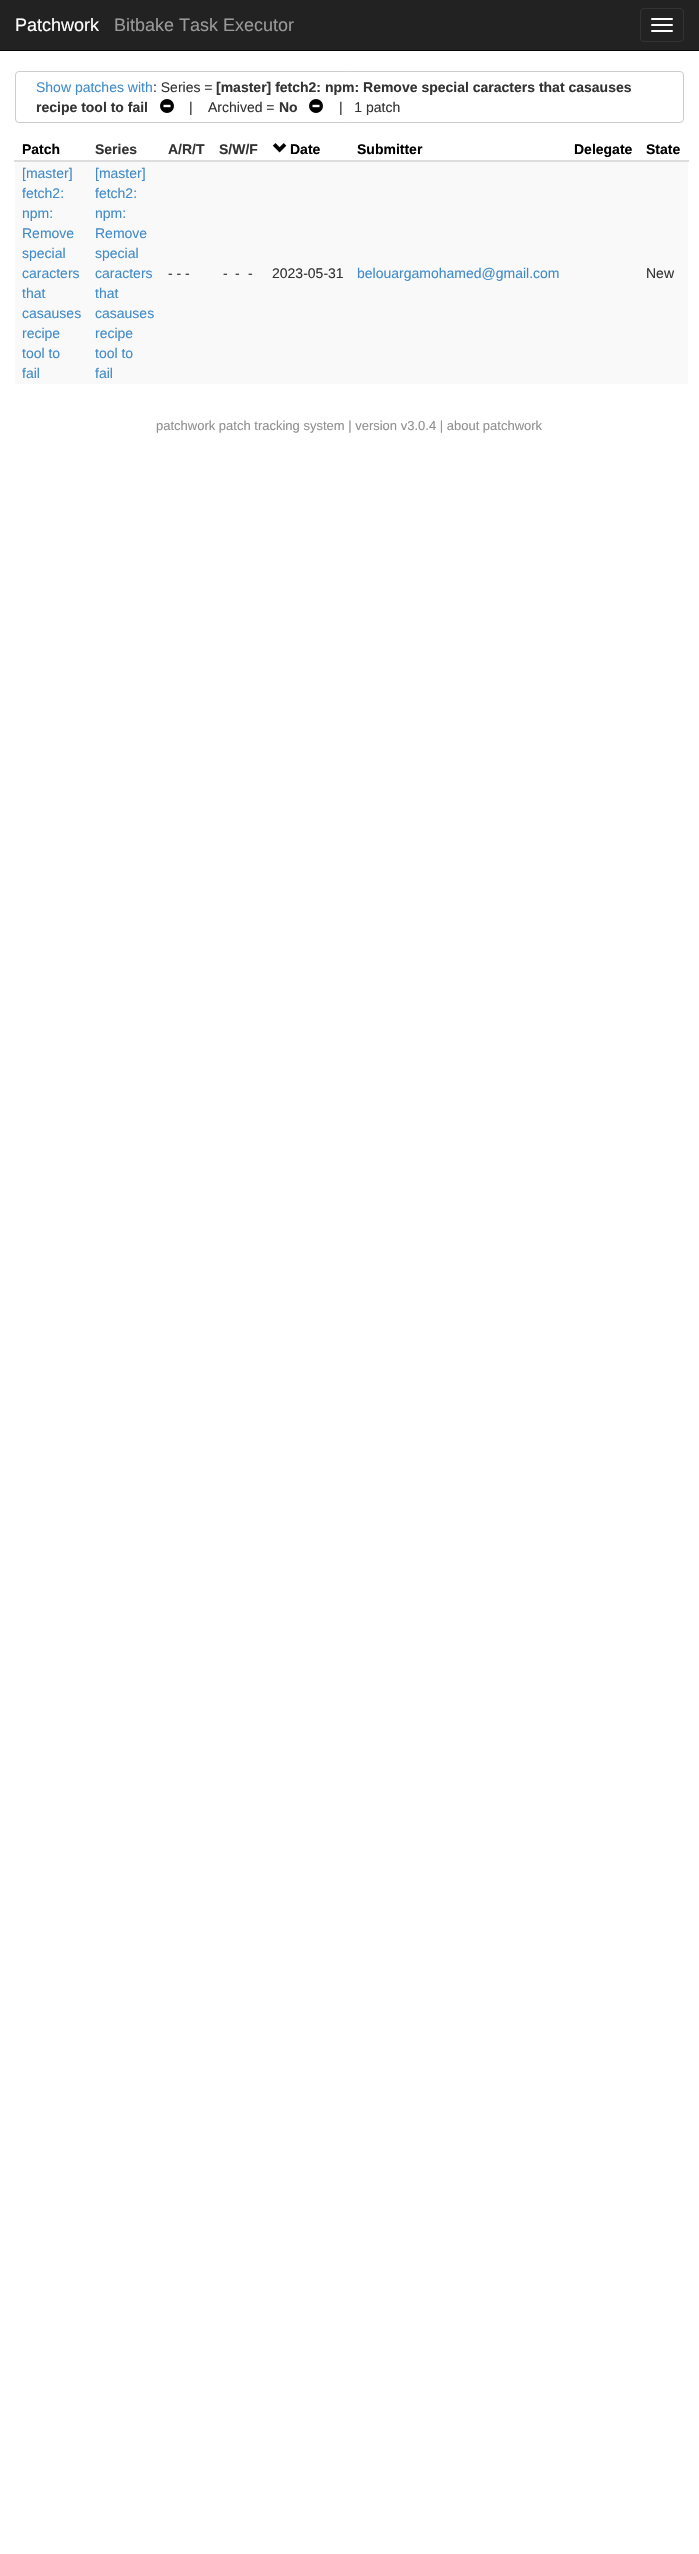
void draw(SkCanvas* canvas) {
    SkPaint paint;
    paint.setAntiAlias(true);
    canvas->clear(0xFFFFFFFF);
    paint.setColor(0xFF222222);
    canvas->drawRect(SkRect::MakeXYWH(0, 0, 699, 50), paint);
    paint.setColor(0xFF080808);
    canvas->drawRect(SkRect::MakeXYWH(0, 50, 699, 1), paint);
    SkFont font1(fontMgr->matchFamilyStyle("Liberation Sans", SkFontStyle::Normal()), 18);
    font1.setSubpixel(true);
    paint.setColor(0xFFFFFFFF);
    canvas->drawString("Patchwork", 15, 31, font1, paint);
    paint.setColor(0xFF999999);
    canvas->drawString("Bitbake Task Executor", 114, 31, font1, paint);
    paint.setStyle(SkPaint::kStroke_Style);
    paint.setStrokeWidth(1);
    paint.setColor(0xFF333333);
    canvas->drawRoundRect(SkRect::MakeXYWH(640.5f, 8.5f, 43, 33), 3.5f, 3.5f, paint);
    paint.setStyle(SkPaint::kFill_Style);
    paint.setColor(0xFFFFFFFF);
    canvas->drawRoundRect(SkRect::MakeXYWH(651, 18, 22, 2), 1, 1, paint);
    canvas->drawRoundRect(SkRect::MakeXYWH(651, 24, 22, 2), 1, 1, paint);
    canvas->drawRoundRect(SkRect::MakeXYWH(651, 30, 22, 2), 1, 1, paint);
    paint.setStyle(SkPaint::kStroke_Style);
    paint.setColor(0xFFCCCCCC);
    canvas->drawRoundRect(SkRect::MakeXYWH(15.5f, 71.5f, 668, 51), 3.5f, 3.5f, paint);
    SkFont font2(fontMgr->matchFamilyStyle("Liberation Sans", SkFontStyle::Normal()), 14);
    font2.setSubpixel(true);
    paint.setStyle(SkPaint::kFill_Style);
    paint.setColor(0xFF428BCA);
    canvas->drawString("Show patches with", 36, 92, font2, paint);
    paint.setColor(0xFF333333);
    canvas->drawString(": Series =", 153, 92, font2, paint);
    SkFont font3(fontMgr->matchFamilyStyle("Liberation Sans", SkFontStyle::Bold()), 14);
    font3.setSubpixel(true);
    canvas->drawString("[master] fetch2: npm: Remove special caracters that casauses", 216, 92, font3, paint);
    canvas->drawString("recipe tool to fail", 36, 112, font3, paint);
    canvas->drawImageRect(SkImages::DeferredFromEncodedData(SkData::MakeFromFileName("img1.png")), SkRect::MakeXYWH(160, 99, 14, 14), SkSamplingOptions());
    canvas->drawString("|", 189, 112, font2, paint);
    canvas->drawString("Archived =", 208, 112, font2, paint);
    canvas->drawString("No", 279, 112, font3, paint);
    canvas->drawImageRect(SkImages::DeferredFromEncodedData(SkData::MakeFromFileName("img1.png")), SkRect::MakeXYWH(309, 99, 14, 14), SkSamplingOptions());
    canvas->drawString("|   1 patch", 339, 112, font2, paint);
    paint.setColor(0xFF000000);
    canvas->drawString("Patch", 22, 154, font3, paint);
    paint.setColor(0xFF333333);
    canvas->drawString("Series", 95, 154, font3, paint);
    canvas->drawString("A/R/T", 168, 154, font3, paint);
    canvas->drawString("S/W/F", 219, 154, font3, paint);
    canvas->drawImageRect(SkImages::DeferredFromEncodedData(SkData::MakeFromFileName("img2.png")), SkRect::MakeXYWH(272, 143, 15, 10), SkSamplingOptions());
    paint.setColor(0xFF000000);
    canvas->drawString("Date", 290, 154, font3, paint);
    canvas->drawString("Submitter", 357, 154, font3, paint);
    canvas->drawString("Delegate", 574, 154, font3, paint);
    paint.setColor(0xFFDDDDDD);
    canvas->drawRect(SkRect::MakeXYWH(14, 160, 675, 2), paint);
    paint.setColor(0xFF000000);
    canvas->drawString("State", 646, 154, font3, paint);
    paint.setColor(0xFFF9F9F9);
    canvas->drawRect(SkRect::MakeXYWH(15, 162, 673, 222), paint);
    paint.setColor(0xFF428BCA);
    canvas->drawString("[master]", 22, 178, font2, paint);
    canvas->drawString("fetch2:", 22, 198, font2, paint);
    canvas->drawString("npm:", 22, 218, font2, paint);
    canvas->drawString("Remove", 22, 238, font2, paint);
    canvas->drawString("special", 22, 258, font2, paint);
    canvas->drawString("caracters", 22, 278, font2, paint);
    canvas->drawString("that", 22, 298, font2, paint);
    canvas->drawString("casauses", 22, 318, font2, paint);
    canvas->drawString("recipe", 22, 338, font2, paint);
    canvas->drawString("tool to", 22, 358, font2, paint);
    canvas->drawString("fail", 22, 378, font2, paint);
    canvas->drawString("[master]", 95, 178, font2, paint);
    canvas->drawString("fetch2:", 95, 198, font2, paint);
    canvas->drawString("npm:", 95, 218, font2, paint);
    canvas->drawString("Remove", 95, 238, font2, paint);
    canvas->drawString("special", 95, 258, font2, paint);
    canvas->drawString("caracters", 95, 278, font2, paint);
    canvas->drawString("that", 95, 298, font2, paint);
    canvas->drawString("casauses", 95, 318, font2, paint);
    canvas->drawString("recipe", 95, 338, font2, paint);
    canvas->drawString("tool to", 95, 358, font2, paint);
    canvas->drawString("fail", 95, 378, font2, paint);
    paint.setColor(0xFF333333);
    canvas->drawString("- - -", 168, 278, font2, paint);
    canvas->drawString("-", 223, 278, font2, paint);
    canvas->drawString("-", 235, 278, font2, paint);
    canvas->drawString("-", 248, 278, font2, paint);
    canvas->drawString("2023-05-31", 272, 278, font2, paint);
    paint.setColor(0xFF428BCA);
    canvas->drawString("belouargamohamed@gmail.com", 357, 278, font2, paint);
    paint.setColor(0xFF333333);
    canvas->drawString("New", 646, 278, font2, paint);
    SkFont font4(fontMgr->matchFamilyStyle("Liberation Sans", SkFontStyle::Normal()), 13);
    font4.setSubpixel(true);
    paint.setColor(0xFF909090);
    canvas->drawString("patchwork patch tracking system | version v3.0.4 | about patchwork", 156, 430, font4, paint);
}
